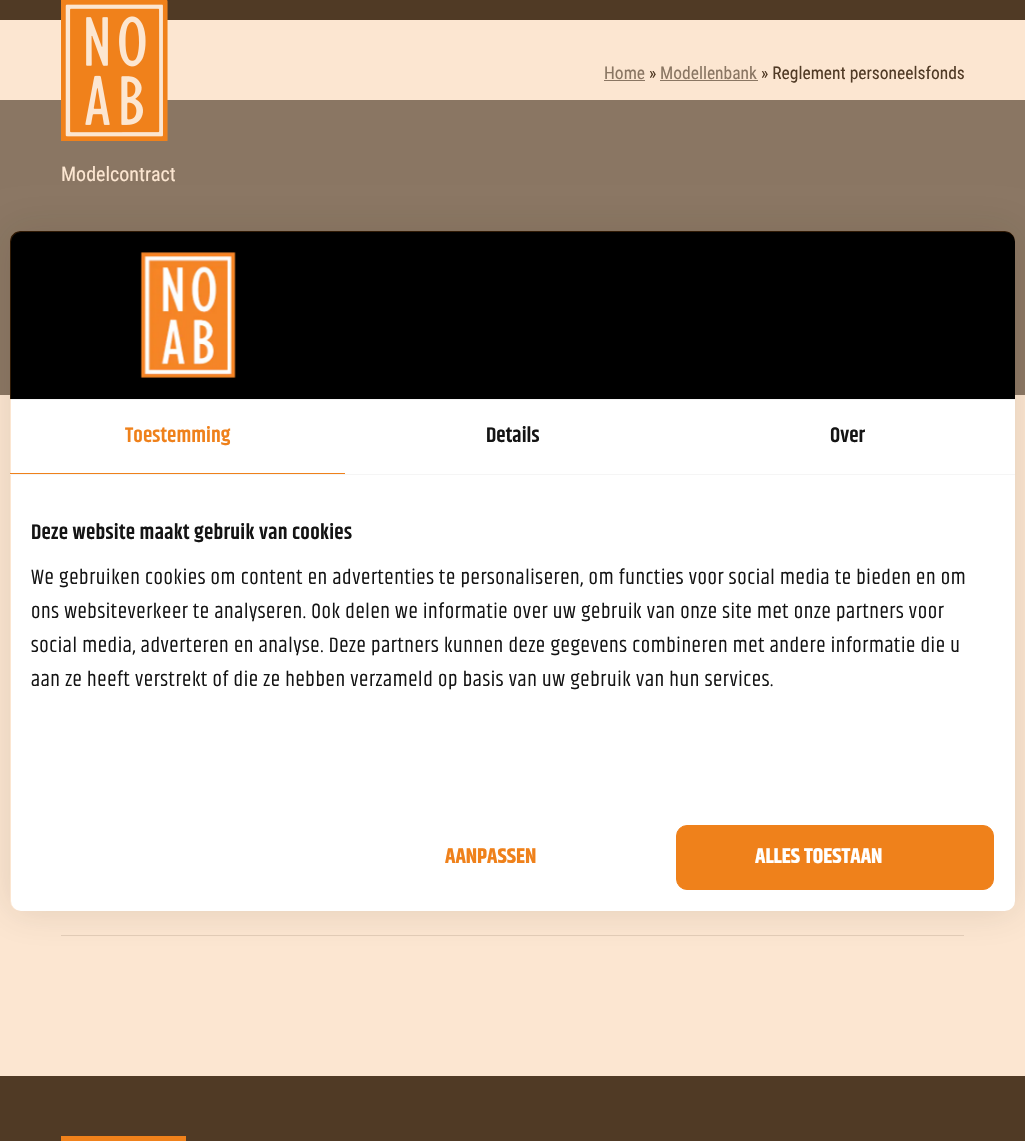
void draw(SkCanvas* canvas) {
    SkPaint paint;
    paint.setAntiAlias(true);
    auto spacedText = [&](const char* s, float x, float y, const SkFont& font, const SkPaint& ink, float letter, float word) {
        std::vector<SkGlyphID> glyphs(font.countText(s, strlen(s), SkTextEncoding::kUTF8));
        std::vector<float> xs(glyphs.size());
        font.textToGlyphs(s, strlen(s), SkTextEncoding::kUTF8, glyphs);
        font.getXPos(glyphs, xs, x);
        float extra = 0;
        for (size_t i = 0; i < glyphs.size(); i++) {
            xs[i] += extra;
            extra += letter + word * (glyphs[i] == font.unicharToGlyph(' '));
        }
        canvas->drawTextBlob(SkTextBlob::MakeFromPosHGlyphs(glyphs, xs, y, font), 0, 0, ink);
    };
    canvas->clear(0xFFFFFFFF);
    paint.setColor(0xFF282828);
    canvas->drawRect(SkRect::MakeXYWH(0, 0, 1025, 20), paint);
    paint.setColor(0xFF707375);
    canvas->drawRect(SkRect::MakeXYWH(0, 100, 1025, 295), paint);
    canvas->drawImageRect(SkImages::DeferredFromEncodedData(SkData::MakeFromFileName("img1.png")), SkRect::MakeXYWH(61, 0, 107, 141), SkSamplingOptions());
    SkFont font1(fontMgr->matchFamilyStyle("Roboto Condensed", SkFontStyle::Normal()), 17.5f);
    font1.setSubpixel(true);
    canvas->drawString("Home", 604, 79, font1, paint);
    canvas->drawRect(SkRect::MakeXYWH(604, 80, 41, 1), paint);
    paint.setColor(0xFF282828);
    canvas->drawString("»", 649, 79, font1, paint);
    paint.setColor(0xFF707375);
    canvas->drawString("Modellenbank", 660, 79, font1, paint);
    canvas->drawRect(SkRect::MakeXYWH(660, 80, 98, 1), paint);
    paint.setColor(0xFF282828);
    canvas->drawString("» Reglement personeelsfonds", 761, 79, font1, paint);
    SkFont font2(fontMgr->matchFamilyStyle("Roboto Condensed", SkFontStyle::Normal()), 20);
    font2.setSubpixel(true);
    paint.setColor(0xFFFFFFFF);
    canvas->drawString("Modelcontract", 61, 181, font2, paint);
    paint.setColor(0xFFE0E1E1);
    canvas->drawRect(SkRect::MakeXYWH(61, 935, 903, 1), paint);
    paint.setColor(0x261D2327);
    paint.setMaskFilter(SkMaskFilter::MakeBlur(kNormal_SkBlurStyle, 19));
    canvas->drawRoundRect(SkRect::MakeXYWH(10, 231, 1005, 680), 10, 10, paint);
    paint.setMaskFilter(nullptr);
    paint.setColor(0xFFFFFFFF);
    canvas->drawRoundRect(SkRect::MakeXYWH(10, 231, 1005, 680), 10, 10, paint);
    paint.setColor(0xFF000000);
    canvas->drawPath(SkPathBuilder().moveTo(20, 231).lineTo(1005, 231).cubicTo(1010.5f, 231, 1015, 235.5f, 1015, 241).lineTo(1015, 400).lineTo(10, 400).lineTo(10, 241).cubicTo(10, 235.5f, 14.5f, 231, 20, 231).close().detach(), paint);
    paint.setColor(0xFFF5F5F5);
    canvas->drawRect(SkRect::MakeXYWH(10, 399, 1005, 1), paint);
    canvas->drawImageRect(SkImages::DeferredFromEncodedData(SkData::MakeFromFileName("img2.png")), SkRect::MakeXYWH(140, 252, 96, 126), SkSamplingOptions());
    paint.setColor(0xFF282828);
    canvas->drawRect(SkRect::MakeXYWH(0, 1076, 1025, 65), paint);
    paint.setColor(0xFFF0811B);
    canvas->drawRect(SkRect::MakeXYWH(61, 1136, 125, 5), paint);
    paint.setStyle(SkPaint::kStroke_Style);
    paint.setStrokeWidth(11413);
    paint.setColor(0x33EF811B);
    canvas->drawRoundRect(SkRect::MakeXYWH(-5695.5f, -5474.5f, 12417, 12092), 5716.5f, 5716.5f, paint);
    paint.setStyle(SkPaint::kFill_Style);
    paint.setColor(0xFFF5F5F5);
    canvas->drawRect(SkRect::MakeXYWH(10, 474, 1005, 1), paint);
    paint.setColor(0xFFEF811B);
    canvas->drawRect(SkRect::MakeXYWH(10, 473, 335, 1), paint);
    SkFont font3(fontMgr->matchFamilyStyle("Khand", SkFontStyle(600, SkFontStyle::kNormal_Width, SkFontStyle::kUpright_Slant)), 21.25f);
    font3.setSubpixel(true);
    spacedText("Toestemming", 125, 442, font3, paint, 0.1f, 0);
    paint.setColor(0xFF141414);
    spacedText("Details", 486, 442, font3, paint, 0.1f, 0);
    spacedText("Over", 830, 442, font3, paint, 0.1f, 0);
    spacedText("Deze website maakt gebruik van cookies", 31, 539, font3, paint, 0.3f, 0);
    SkFont font4(fontMgr->matchFamilyStyle("Khand", SkFontStyle::Normal()), 21.25f);
    font4.setSubpixel(true);
    spacedText("We gebruiken cookies om content en advertenties te personaliseren, om functies voor social media te bieden en om", 31, 584, font4, paint, 0.62f, 0);
    spacedText("ons websiteverkeer te analyseren. Ook delen we informatie over uw gebruik van onze site met onze partners voor", 31, 618, font4, paint, 0.62f, 0);
    spacedText("social media, adverteren en analyse. Deze partners kunnen deze gegevens combineren met andere informatie die u", 31, 652, font4, paint, 0.62f, 0);
    spacedText("aan ze heeft verstrekt of die ze hebben verzameld op basis van uw gebruik van hun services.", 31, 686, font4, paint, 0.62f, 0);
    SkFont font5(fontMgr->matchFamilyStyle("Khand", SkFontStyle::Bold()), 21.25f);
    font5.setSubpixel(true);
    paint.setColor(0xFFEF811B);
    canvas->drawString("AANPASSEN", 445, 863, font5, paint);
    canvas->drawRoundRect(SkRect::MakeXYWH(676.5f, 825.5f, 317, 64), 10.5f, 10.5f, paint);
    paint.setStyle(SkPaint::kStroke_Style);
    paint.setStrokeWidth(1);
    canvas->drawRoundRect(SkRect::MakeXYWH(676.5f, 825.5f, 317, 64), 10.5f, 10.5f, paint);
    paint.setStyle(SkPaint::kFill_Style);
    paint.setColor(0xFFFFFFFF);
    canvas->drawString("ALLES TOESTAAN", 755, 863, font5, paint);
}
